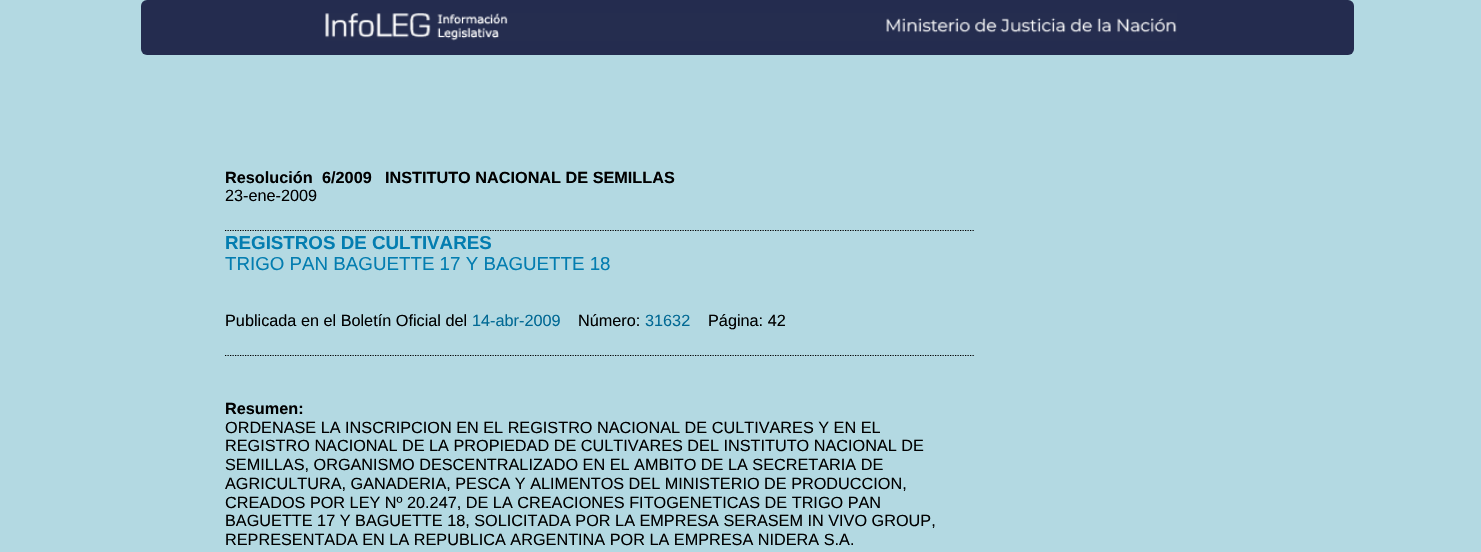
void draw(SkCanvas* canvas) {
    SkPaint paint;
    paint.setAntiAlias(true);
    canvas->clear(0xFFB3D9E2);
    paint.setColor(0xFF242C4F);
    canvas->drawRoundRect(SkRect::MakeXYWH(141, 0, 1213, 55), 6, 6, paint);
    canvas->drawImageRect(SkImages::DeferredFromEncodedData(SkData::MakeFromFileName("img1.png")), SkRect::MakeXYWH(325, 13, 852, 28), SkSamplingOptions());
    paint.setStyle(SkPaint::kStroke_Style);
    paint.setStrokeWidth(1.2f);
    paint.setColor(0xFF000000);
    paint.setPathEffect(SkDashPathEffect::Make({{1.25f, 1.25f}}, 0));
    canvas->drawPath(SkPathBuilder().moveTo(225, 230.5f).lineTo(975, 230.5f).detach(), paint);
    paint.setPathEffect(nullptr);
    SkFont font1(fontMgr->matchFamilyStyle("Liberation Sans", SkFontStyle::Bold()), 16.25f);
    font1.setSubpixel(true);
    paint.setStyle(SkPaint::kFill_Style);
    canvas->drawString("Resolución", 225, 183, font1, paint);
    canvas->drawString("6/2009", 322, 183, font1, paint);
    canvas->drawString("INSTITUTO NACIONAL DE SEMILLAS", 385, 183, font1, paint);
    SkFont font2(fontMgr->matchFamilyStyle("Liberation Sans", SkFontStyle::Normal()), 16.25f);
    font2.setSubpixel(true);
    canvas->drawString("23-ene-2009", 225, 201, font2, paint);
    SkFont font3(fontMgr->matchFamilyStyle("Liberation Sans", SkFontStyle::Bold()), 18.75f);
    font3.setSubpixel(true);
    paint.setColor(0xFF037DB0);
    canvas->drawString("REGISTROS DE CULTIVARES", 225, 249, font3, paint);
    SkFont font4(fontMgr->matchFamilyStyle("Liberation Sans", SkFontStyle::Normal()), 18.75f);
    font4.setSubpixel(true);
    canvas->drawString("TRIGO PAN BAGUETTE 17 Y BAGUETTE 18", 225, 270, font4, paint);
    paint.setStyle(SkPaint::kStroke_Style);
    paint.setColor(0xFF000000);
    paint.setPathEffect(SkDashPathEffect::Make({{1.25f, 1.25f}}, 0));
    canvas->drawPath(SkPathBuilder().moveTo(225, 355.5f).lineTo(975, 355.5f).detach(), paint);
    paint.setPathEffect(nullptr);
    paint.setStyle(SkPaint::kFill_Style);
    canvas->drawString("Publicada en el Boletín Oficial del", 225, 326, font2, paint);
    paint.setColor(0xFF016994);
    canvas->drawString("14-abr-2009", 472, 326, font2, paint);
    paint.setColor(0xFF000000);
    canvas->drawString("Número:", 578, 326, font2, paint);
    paint.setColor(0xFF016994);
    canvas->drawString("31632", 645, 326, font2, paint);
    paint.setColor(0xFF000000);
    canvas->drawString("Página: 42", 708, 326, font2, paint);
    canvas->drawString("Resumen:", 225, 414, font1, paint);
    canvas->drawString("ORDENASE LA INSCRIPCION EN EL REGISTRO NACIONAL DE CULTIVARES Y EN EL", 225, 433, font2, paint);
    canvas->drawString("REGISTRO NACIONAL DE LA PROPIEDAD DE CULTIVARES DEL INSTITUTO NACIONAL DE", 225, 451, font2, paint);
    canvas->drawString("SEMILLAS, ORGANISMO DESCENTRALIZADO EN EL AMBITO DE LA SECRETARIA DE", 225, 470, font2, paint);
    canvas->drawString("AGRICULTURA, GANADERIA, PESCA Y ALIMENTOS DEL MINISTERIO DE PRODUCCION,", 225, 489, font2, paint);
    canvas->drawString("CREADOS POR LEY Nº 20.247, DE LA CREACIONES FITOGENETICAS DE TRIGO PAN", 225, 508, font2, paint);
    canvas->drawString("BAGUETTE 17 Y BAGUETTE 18, SOLICITADA POR LA EMPRESA SERASEM IN VIVO GROUP,", 225, 526, font2, paint);
    canvas->drawString("REPRESENTADA EN LA REPUBLICA ARGENTINA POR LA EMPRESA NIDERA S.A.", 225, 545, font2, paint);
}
